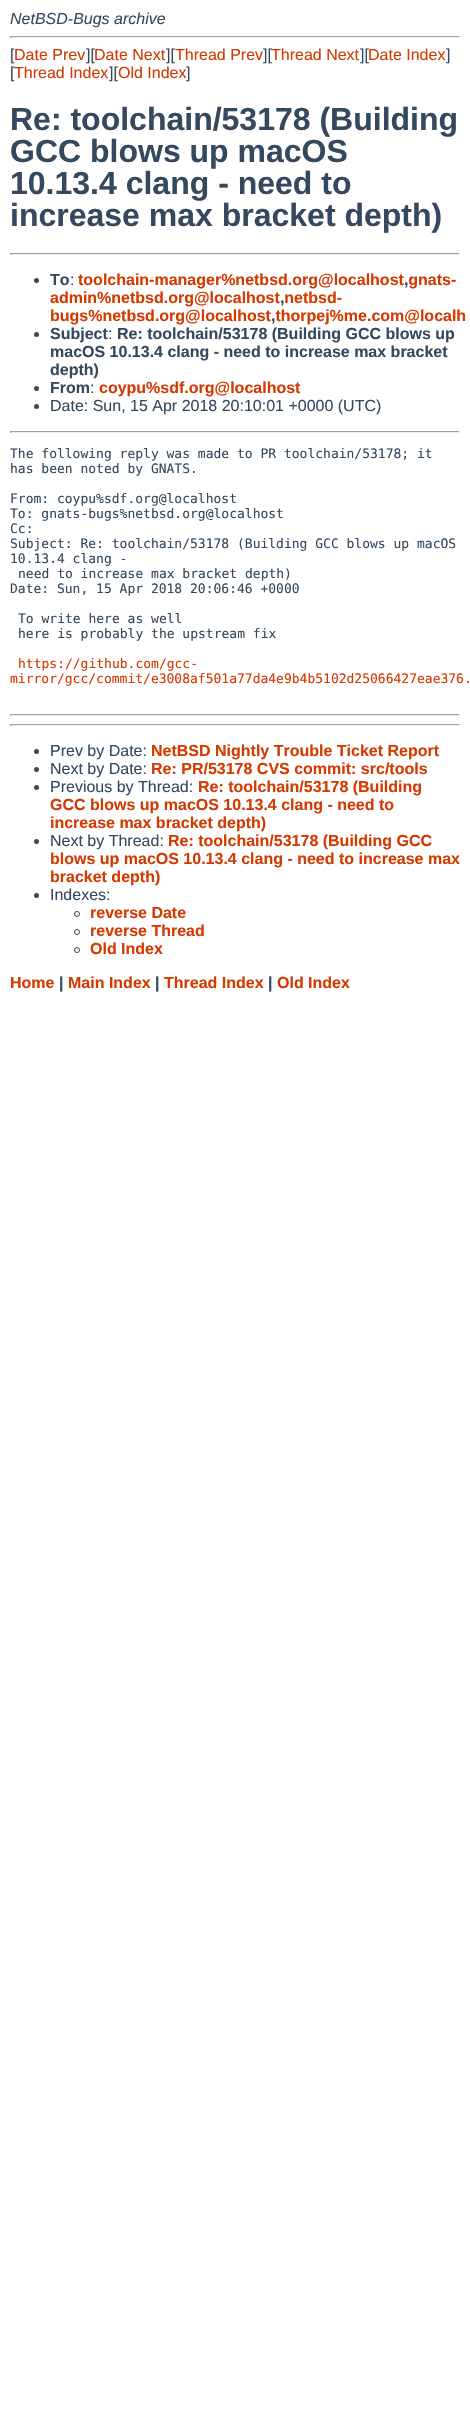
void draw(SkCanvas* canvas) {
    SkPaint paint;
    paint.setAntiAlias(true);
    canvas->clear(0xFFFFFFFF);
    SkFont font1(fontMgr->matchFamilyStyle("Liberation Sans", SkFontStyle::Italic()), 16);
    font1.setSubpixel(true);
    paint.setColor(0xFF34495E);
    canvas->drawString("NetBSD-Bugs archive", 10, 24, font1, paint);
    paint.setColor(0xFF9F9F9F);
    canvas->drawRect(SkRect::MakeXYWH(10, 36, 450, 1), paint);
    paint.setColor(0xFFEEEEEE);
    canvas->drawRect(SkRect::MakeXYWH(459, 36, 1, 2), paint);
    canvas->drawRect(SkRect::MakeXYWH(10, 37, 450, 1), paint);
    paint.setColor(0xFF9F9F9F);
    canvas->drawRect(SkRect::MakeXYWH(10, 36, 1, 2), paint);
    SkFont font2(fontMgr->matchFamilyStyle("Liberation Sans", SkFontStyle::Normal()), 16);
    font2.setSubpixel(true);
    paint.setColor(0xFF34495E);
    canvas->drawString("[", 10, 60, font2, paint);
    paint.setColor(0xFFD43900);
    canvas->drawString("Date Prev", 14, 60, font2, paint);
    paint.setColor(0xFF34495E);
    canvas->drawString("][", 86, 60, font2, paint);
    paint.setColor(0xFFD43900);
    canvas->drawString("Date Next", 94, 60, font2, paint);
    paint.setColor(0xFF34495E);
    canvas->drawString("][", 166, 60, font2, paint);
    paint.setColor(0xFFD43900);
    canvas->drawString("Thread Prev", 175, 60, font2, paint);
    paint.setColor(0xFF34495E);
    canvas->drawString("][", 263, 60, font2, paint);
    paint.setColor(0xFFD43900);
    canvas->drawString("Thread Next", 271, 60, font2, paint);
    paint.setColor(0xFF34495E);
    canvas->drawString("][", 360, 60, font2, paint);
    paint.setColor(0xFFD43900);
    canvas->drawString("Date Index", 368, 60, font2, paint);
    paint.setColor(0xFF34495E);
    canvas->drawString("]", 446, 60, font2, paint);
    canvas->drawString("[", 10, 78, font2, paint);
    paint.setColor(0xFFD43900);
    canvas->drawString("Thread Index", 14, 78, font2, paint);
    paint.setColor(0xFF34495E);
    canvas->drawString("][", 109, 78, font2, paint);
    paint.setColor(0xFFD43900);
    canvas->drawString("Old Index", 118, 78, font2, paint);
    paint.setColor(0xFF34495E);
    canvas->drawString("]", 186, 78, font2, paint);
    SkFont font3(fontMgr->matchFamilyStyle("Liberation Sans", SkFontStyle::Bold()), 32);
    font3.setSubpixel(true);
    canvas->drawString("Re: toolchain/53178 (Building", 10, 130, font3, paint);
    canvas->drawString("GCC blows up macOS", 10, 162, font3, paint);
    canvas->drawString("10.13.4 clang - need to", 10, 194, font3, paint);
    canvas->drawString("increase max bracket depth)", 10, 226, font3, paint);
    paint.setColor(0xFF9F9F9F);
    canvas->drawRect(SkRect::MakeXYWH(10, 253, 450, 1), paint);
    paint.setColor(0xFFEEEEEE);
    canvas->drawRect(SkRect::MakeXYWH(459, 253, 1, 2), paint);
    canvas->drawRect(SkRect::MakeXYWH(10, 254, 450, 1), paint);
    paint.setColor(0xFF9F9F9F);
    canvas->drawRect(SkRect::MakeXYWH(10, 253, 1, 2), paint);
    paint.setColor(0xFF34495E);
    canvas->drawCircle(36.5f, 280.5f, 2.5f, paint);
    SkFont font4(fontMgr->matchFamilyStyle("Liberation Sans", SkFontStyle::Bold()), 16);
    font4.setSubpixel(true);
    canvas->drawString("To", 50, 285, font4, paint);
    canvas->drawString(":", 70, 285, font2, paint);
    paint.setColor(0xFFD43900);
    canvas->drawString("toolchain-manager%netbsd.org@localhost gnats-", 78, 285, font4, paint);
    paint.setColor(0xFF34495E);
    canvas->drawString(",", 404, 285, font4, paint);
    paint.setColor(0xFFD43900);
    canvas->drawString("admin%netbsd.org@localhost netbsd-", 50, 303, font4, paint);
    paint.setColor(0xFF34495E);
    canvas->drawString(",", 280, 303, font4, paint);
    paint.setColor(0xFFD43900);
    canvas->drawString("bugs%netbsd.org@localhost thorpej%me.com@localh", 50, 321, font4, paint);
    paint.setColor(0xFF34495E);
    canvas->drawString(",", 271, 321, font4, paint);
    canvas->drawCircle(36.5f, 334.5f, 2.5f, paint);
    canvas->drawString("Subject", 50, 339, font4, paint);
    canvas->drawString(":", 108, 339, font2, paint);
    canvas->drawString("Re: toolchain/53178 (Building GCC blows up", 117, 339, font4, paint);
    canvas->drawString("macOS 10.13.4 clang - need to increase max bracket", 50, 357, font4, paint);
    canvas->drawString("depth)", 50, 375, font4, paint);
    canvas->drawCircle(36.5f, 388.5f, 2.5f, paint);
    canvas->drawString("From", 50, 393, font4, paint);
    canvas->drawString(":", 90, 393, font2, paint);
    paint.setColor(0xFFD43900);
    canvas->drawString("coypu%sdf.org@localhost", 99, 393, font4, paint);
    paint.setColor(0xFF34495E);
    canvas->drawCircle(36.5f, 406.5f, 2.5f, paint);
    canvas->drawString("Date: Sun, 15 Apr 2018 20:10:01 +0000 (UTC)", 50, 411, font2, paint);
    paint.setColor(0xFF9F9F9F);
    canvas->drawRect(SkRect::MakeXYWH(10, 431, 450, 1), paint);
    paint.setColor(0xFFEEEEEE);
    canvas->drawRect(SkRect::MakeXYWH(459, 431, 1, 2), paint);
    canvas->drawRect(SkRect::MakeXYWH(10, 432, 450, 1), paint);
    paint.setColor(0xFF9F9F9F);
    canvas->drawRect(SkRect::MakeXYWH(10, 431, 1, 2), paint);
    SkFont font5(fontMgr->matchFamilyStyle("DejaVu Sans Mono", SkFontStyle::Normal()), 13);
    font5.setSubpixel(true);
    paint.setColor(0xFF34495E);
    canvas->drawString("The following reply was made to PR toolchain/53178; it", 10, 458, font5, paint);
    canvas->drawString("has been noted by GNATS.", 10, 473, font5, paint);
    canvas->drawString("From: coypu%sdf.org@localhost", 10, 503, font5, paint);
    canvas->drawString("To: gnats-bugs%netbsd.org@localhost", 10, 518, font5, paint);
    canvas->drawString("Cc:", 10, 533, font5, paint);
    canvas->drawString("Subject: Re: toolchain/53178 (Building GCC blows up macOS", 10, 548, font5, paint);
    canvas->drawString("10.13.4 clang -", 10, 563, font5, paint);
    canvas->drawString("need to increase max bracket depth)", 18, 578, font5, paint);
    canvas->drawString("Date: Sun, 15 Apr 2018 20:06:46 +0000", 10, 593, font5, paint);
    canvas->drawString("To write here as well", 18, 623, font5, paint);
    canvas->drawString("here is probably the upstream fix", 18, 638, font5, paint);
    paint.setColor(0xFFD43900);
    canvas->drawString("https://github.com/gcc-", 18, 668, font5, paint);
    canvas->drawString("mirror/gcc/commit/e3008af501a77da4e9b4b5102d25066427eae376.", 10, 683, font5, paint);
    paint.setColor(0xFF9F9F9F);
    canvas->drawRect(SkRect::MakeXYWH(10, 714, 450, 1), paint);
    paint.setColor(0xFFEEEEEE);
    canvas->drawRect(SkRect::MakeXYWH(459, 714, 1, 2), paint);
    canvas->drawRect(SkRect::MakeXYWH(10, 715, 450, 1), paint);
    paint.setColor(0xFF9F9F9F);
    canvas->drawRect(SkRect::MakeXYWH(10, 714, 1, 2), paint);
    canvas->drawRect(SkRect::MakeXYWH(10, 724, 450, 1), paint);
    paint.setColor(0xFFEEEEEE);
    canvas->drawRect(SkRect::MakeXYWH(459, 724, 1, 2), paint);
    canvas->drawRect(SkRect::MakeXYWH(10, 725, 450, 1), paint);
    paint.setColor(0xFF9F9F9F);
    canvas->drawRect(SkRect::MakeXYWH(10, 724, 1, 2), paint);
    paint.setColor(0xFF34495E);
    canvas->drawCircle(36.5f, 751.5f, 2.5f, paint);
    canvas->drawString("Prev by Date:", 50, 756, font2, paint);
    paint.setColor(0xFFD43900);
    canvas->drawString("NetBSD Nightly Trouble Ticket Report", 151, 756, font4, paint);
    paint.setColor(0xFF34495E);
    canvas->drawCircle(36.5f, 769.5f, 2.5f, paint);
    canvas->drawString("Next by Date:", 50, 774, font2, paint);
    paint.setColor(0xFFD43900);
    canvas->drawString("Re: PR/53178 CVS commit: src/tools", 151, 774, font4, paint);
    paint.setColor(0xFF34495E);
    canvas->drawCircle(36.5f, 787.5f, 2.5f, paint);
    canvas->drawString("Previous by Thread:", 50, 792, font2, paint);
    paint.setColor(0xFFD43900);
    canvas->drawString("Re: toolchain/53178 (Building", 198, 792, font4, paint);
    canvas->drawString("GCC blows up macOS 10.13.4 clang - need to", 50, 810, font4, paint);
    canvas->drawString("increase max bracket depth)", 50, 828, font4, paint);
    paint.setColor(0xFF34495E);
    canvas->drawCircle(36.5f, 841.5f, 2.5f, paint);
    canvas->drawString("Next by Thread:", 50, 846, font2, paint);
    paint.setColor(0xFFD43900);
    canvas->drawString("Re: toolchain/53178 (Building GCC", 168, 846, font4, paint);
    canvas->drawString("blows up macOS 10.13.4 clang - need to increase max", 50, 864, font4, paint);
    canvas->drawString("bracket depth)", 50, 882, font4, paint);
    paint.setColor(0xFF34495E);
    canvas->drawCircle(36.5f, 895.5f, 2.5f, paint);
    canvas->drawString("Indexes:", 50, 900, font2, paint);
    paint.setStyle(SkPaint::kStroke_Style);
    paint.setStrokeWidth(1);
    canvas->drawCircle(77, 914, 2.5f, paint);
    paint.setStyle(SkPaint::kFill_Style);
    paint.setColor(0xFFD43900);
    canvas->drawString("reverse Date", 90, 918, font4, paint);
    paint.setStyle(SkPaint::kStroke_Style);
    paint.setColor(0xFF34495E);
    canvas->drawCircle(77, 932, 2.5f, paint);
    paint.setStyle(SkPaint::kFill_Style);
    paint.setColor(0xFFD43900);
    canvas->drawString("reverse Thread", 90, 936, font4, paint);
    paint.setStyle(SkPaint::kStroke_Style);
    paint.setColor(0xFF34495E);
    canvas->drawCircle(77, 950, 2.5f, paint);
    paint.setStyle(SkPaint::kFill_Style);
    paint.setColor(0xFFD43900);
    canvas->drawString("Old Index", 90, 954, font4, paint);
    canvas->drawString("Home", 10, 988, font4, paint);
    paint.setColor(0xFF34495E);
    canvas->drawString("|", 59, 988, font4, paint);
    paint.setColor(0xFFD43900);
    canvas->drawString("Main Index", 68, 988, font4, paint);
    paint.setColor(0xFF34495E);
    canvas->drawString("|", 155, 988, font4, paint);
    paint.setColor(0xFFD43900);
    canvas->drawString("Thread Index", 164, 988, font4, paint);
    paint.setColor(0xFF34495E);
    canvas->drawString("|", 268, 988, font4, paint);
    paint.setColor(0xFFD43900);
    canvas->drawString("Old Index", 277, 988, font4, paint);
}
